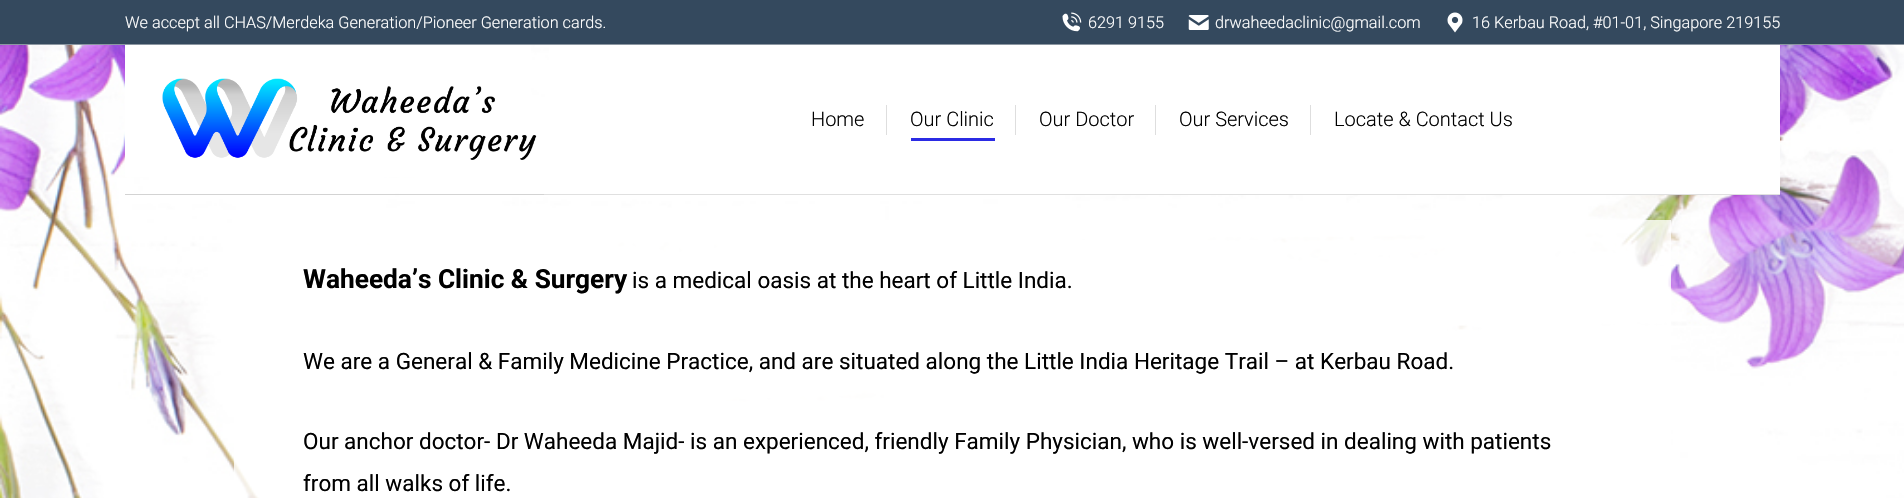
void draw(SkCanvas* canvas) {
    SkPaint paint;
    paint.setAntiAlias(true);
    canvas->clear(0xFFFFFFFF);
    paint.setColor(0xFF34495E);
    canvas->drawRect(SkRect::MakeXYWH(0, 0, 1904, 44), paint);
    SkFont font1(fontMgr->matchFamilyStyle("Roboto", SkFontStyle(300, SkFontStyle::kNormal_Width, SkFontStyle::kUpright_Slant)), 16.25f);
    font1.setSubpixel(true);
    paint.setColor(0xFFFFFFFF);
    canvas->drawString("We accept all CHAS/Merdeka Generation/Pioneer Generation cards.", 125, 28, font1, paint);
    canvas->drawImageRect(SkImages::DeferredFromEncodedData(SkData::MakeFromFileName("img1.png")), SkRect::MakeXYWH(1062, 12, 20, 20), SkSamplingOptions());
    canvas->drawString("6291 9155", 1088, 28, font1, paint);
    canvas->drawImageRect(SkImages::DeferredFromEncodedData(SkData::MakeFromFileName("img2.png")), SkRect::MakeXYWH(1188, 15, 21, 15), SkSamplingOptions());
    canvas->drawString("drwaheedaclinic@gmail.com", 1215, 28, font1, paint);
    canvas->drawImageRect(SkImages::DeferredFromEncodedData(SkData::MakeFromFileName("img3.png")), SkRect::MakeXYWH(1447, 12, 16, 21), SkSamplingOptions());
    canvas->drawString("16 Kerbau Road, #01-01, Singapore 219155", 1472, 28, font1, paint);
    paint.setColor(0xFF8C97A2);
    canvas->drawRect(SkRect::MakeXYWH(0, 44, 1904, 1), paint);
    canvas->drawImageRect(SkImages::DeferredFromEncodedData(SkData::MakeFromFileName("img5.png")), SkRect::MakeXYWH(0, 45, 1904, 453), SkSamplingOptions());
    paint.setColor(0xFFFFFFFF);
    canvas->drawRect(SkRect::MakeXYWH(125, 45, 406, 132), paint);
    paint.setColor(0xFFD3D3D3);
    canvas->drawRect(SkRect::MakeXYWH(125, 194, 419, 1), paint);
    canvas->drawImageRect(SkImages::DeferredFromEncodedData(SkData::MakeFromFileName("img4.png")), SkRect::MakeXYWH(162, 78, 375, 82), SkSamplingOptions());
    paint.setColor(0xFFFFFFFF);
    canvas->drawRect(SkRect::MakeXYWH(549, 45, 1231, 149), paint);
    paint.setColor(0xFFE0E0E0);
    canvas->drawRect(SkRect::MakeXYWH(544, 194, 1236, 1), paint);
    SkFont font2(fontMgr->matchFamilyStyle("Roboto", SkFontStyle(300, SkFontStyle::kNormal_Width, SkFontStyle::kUpright_Slant)), 20);
    font2.setSubpixel(true);
    paint.setColor(0xFF000000);
    canvas->drawString("Home", 811, 126, font2, paint);
    paint.setColor(0xFFDEDEDE);
    canvas->drawRect(SkRect::MakeXYWH(886, 105, 1, 30), paint);
    paint.setColor(0xFF000000);
    canvas->drawString("Our Clinic", 910, 126, font2, paint);
    paint.setColor(0xFF2B2BE4);
    canvas->drawRect(SkRect::MakeXYWH(911, 138, 84, 3), paint);
    paint.setColor(0xFFDEDEDE);
    canvas->drawRect(SkRect::MakeXYWH(1015, 105, 1, 30), paint);
    paint.setColor(0xFF000000);
    canvas->drawString("Our Doctor", 1039, 126, font2, paint);
    paint.setColor(0xFFDEDEDE);
    canvas->drawRect(SkRect::MakeXYWH(1155, 105, 1, 30), paint);
    paint.setColor(0xFF000000);
    canvas->drawString("Our Services", 1179, 126, font2, paint);
    paint.setColor(0xFFDEDEDE);
    canvas->drawRect(SkRect::MakeXYWH(1310, 105, 1, 30), paint);
    paint.setColor(0xFF000000);
    canvas->drawString("Locate & Contact Us", 1334, 126, font2, paint);
    paint.setColor(0xC9FFFFFF);
    canvas->drawRect(SkRect::MakeXYWH(234, 220, 1437, 278), paint);
    SkFont font3(fontMgr->matchFamilyStyle("Roboto", SkFontStyle::Bold()), 26.25f);
    font3.setSubpixel(true);
    paint.setColor(0xFF000000);
    canvas->drawString("Waheeda’s Clinic & Surgery", 303, 288, font3, paint);
    SkFont font4(fontMgr->matchFamilyStyle("Roboto", SkFontStyle::Normal()), 22.5f);
    font4.setSubpixel(true);
    canvas->drawString("is a medical oasis at the heart of Little India.", 632, 288, font4, paint);
    canvas->drawString("We are a General & Family Medicine Practice, and are situated along the Little India Heritage Trail – at Kerbau Road.", 303, 369, font4, paint);
    canvas->drawString("Our anchor doctor- Dr Waheeda Majid- is an experienced, friendly Family Physician, who is well-versed in dealing with patients", 303, 449, font4, paint);
    canvas->drawString("from all walks of life.", 303, 491, font4, paint);
}
